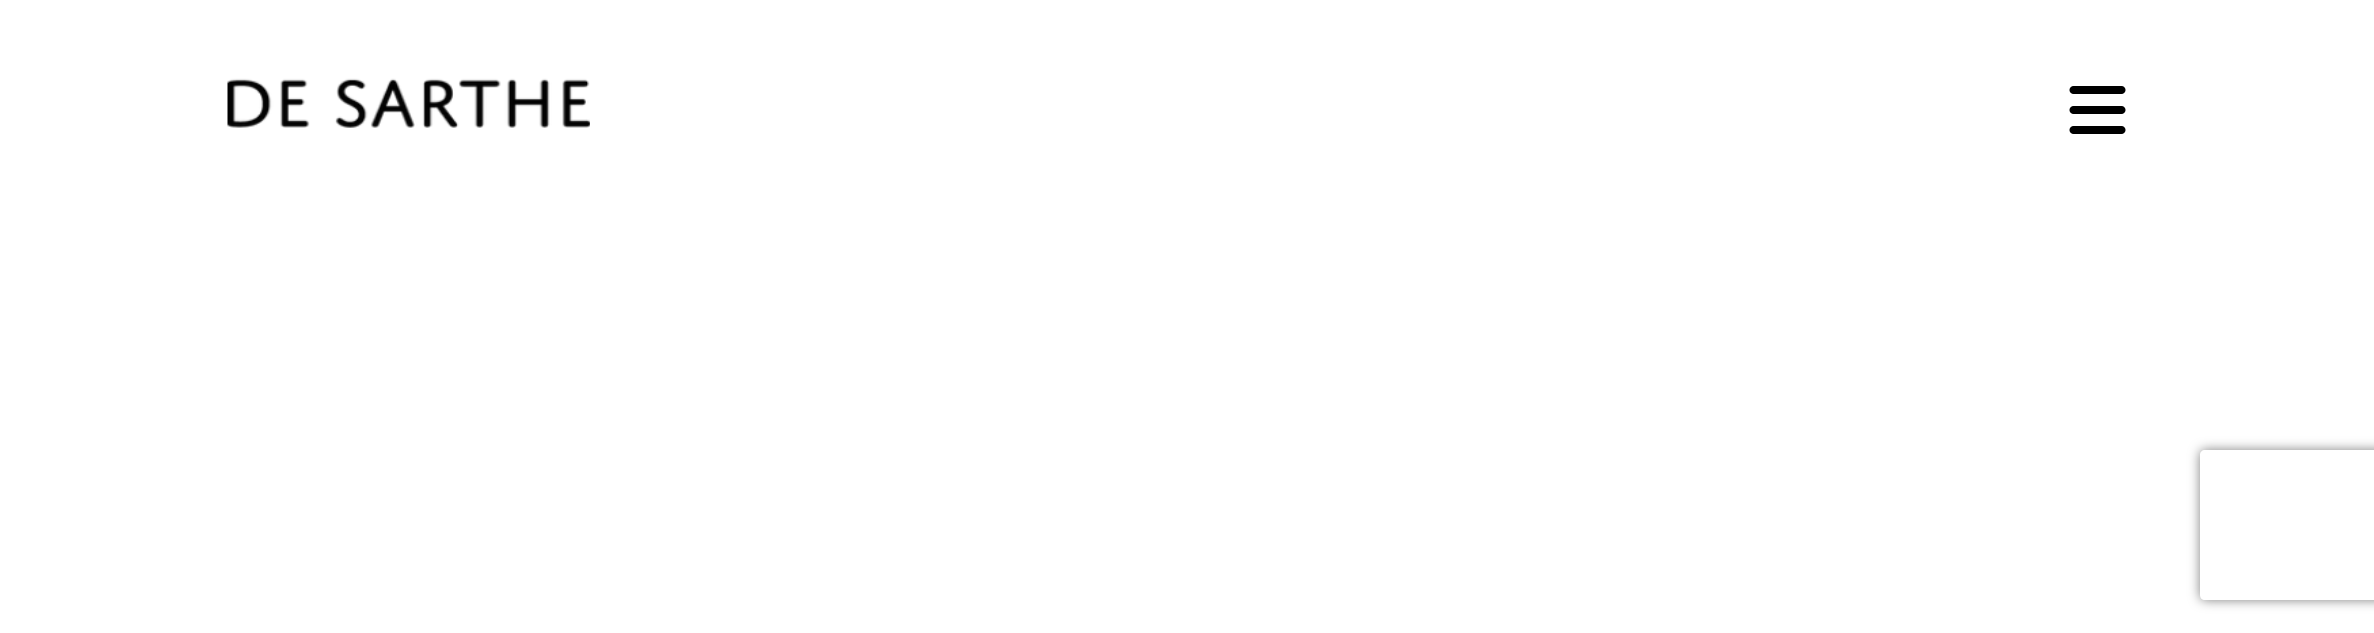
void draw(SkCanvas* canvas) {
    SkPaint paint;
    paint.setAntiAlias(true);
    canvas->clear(0xFFFFFFFF);
    canvas->drawImageRect(SkImages::DeferredFromEncodedData(SkData::MakeFromFileName("img1.png")), SkRect::MakeXYWH(227, 78, 363, 50), SkSamplingOptions());
    canvas->drawImageRect(SkImages::DeferredFromEncodedData(SkData::MakeFromFileName("img2.png")), SkRect::MakeXYWH(2069, 86, 57, 48), SkSamplingOptions());
    canvas->save();
    canvas->clipPath(SkPathBuilder(SkPathFillType::kEvenOdd).moveTo(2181, 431).lineTo(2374, 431).lineTo(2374, 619).lineTo(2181, 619).close().moveTo(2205, 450).lineTo(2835, 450).cubicTo(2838, 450, 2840, 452, 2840, 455).lineTo(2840, 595).cubicTo(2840, 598, 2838, 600, 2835, 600).lineTo(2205, 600).cubicTo(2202, 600, 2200, 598, 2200, 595).lineTo(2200, 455).cubicTo(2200, 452, 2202, 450, 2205, 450).close().detach(), true);
    paint.setColor(0xFF808080);
    paint.setMaskFilter(SkMaskFilter::MakeBlur(kNormal_SkBlurStyle, 6));
    canvas->drawRoundRect(SkRect::MakeXYWH(2200, 450, 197, 150), 5, 5, paint);
    paint.setMaskFilter(nullptr);
    canvas->restore();
}
